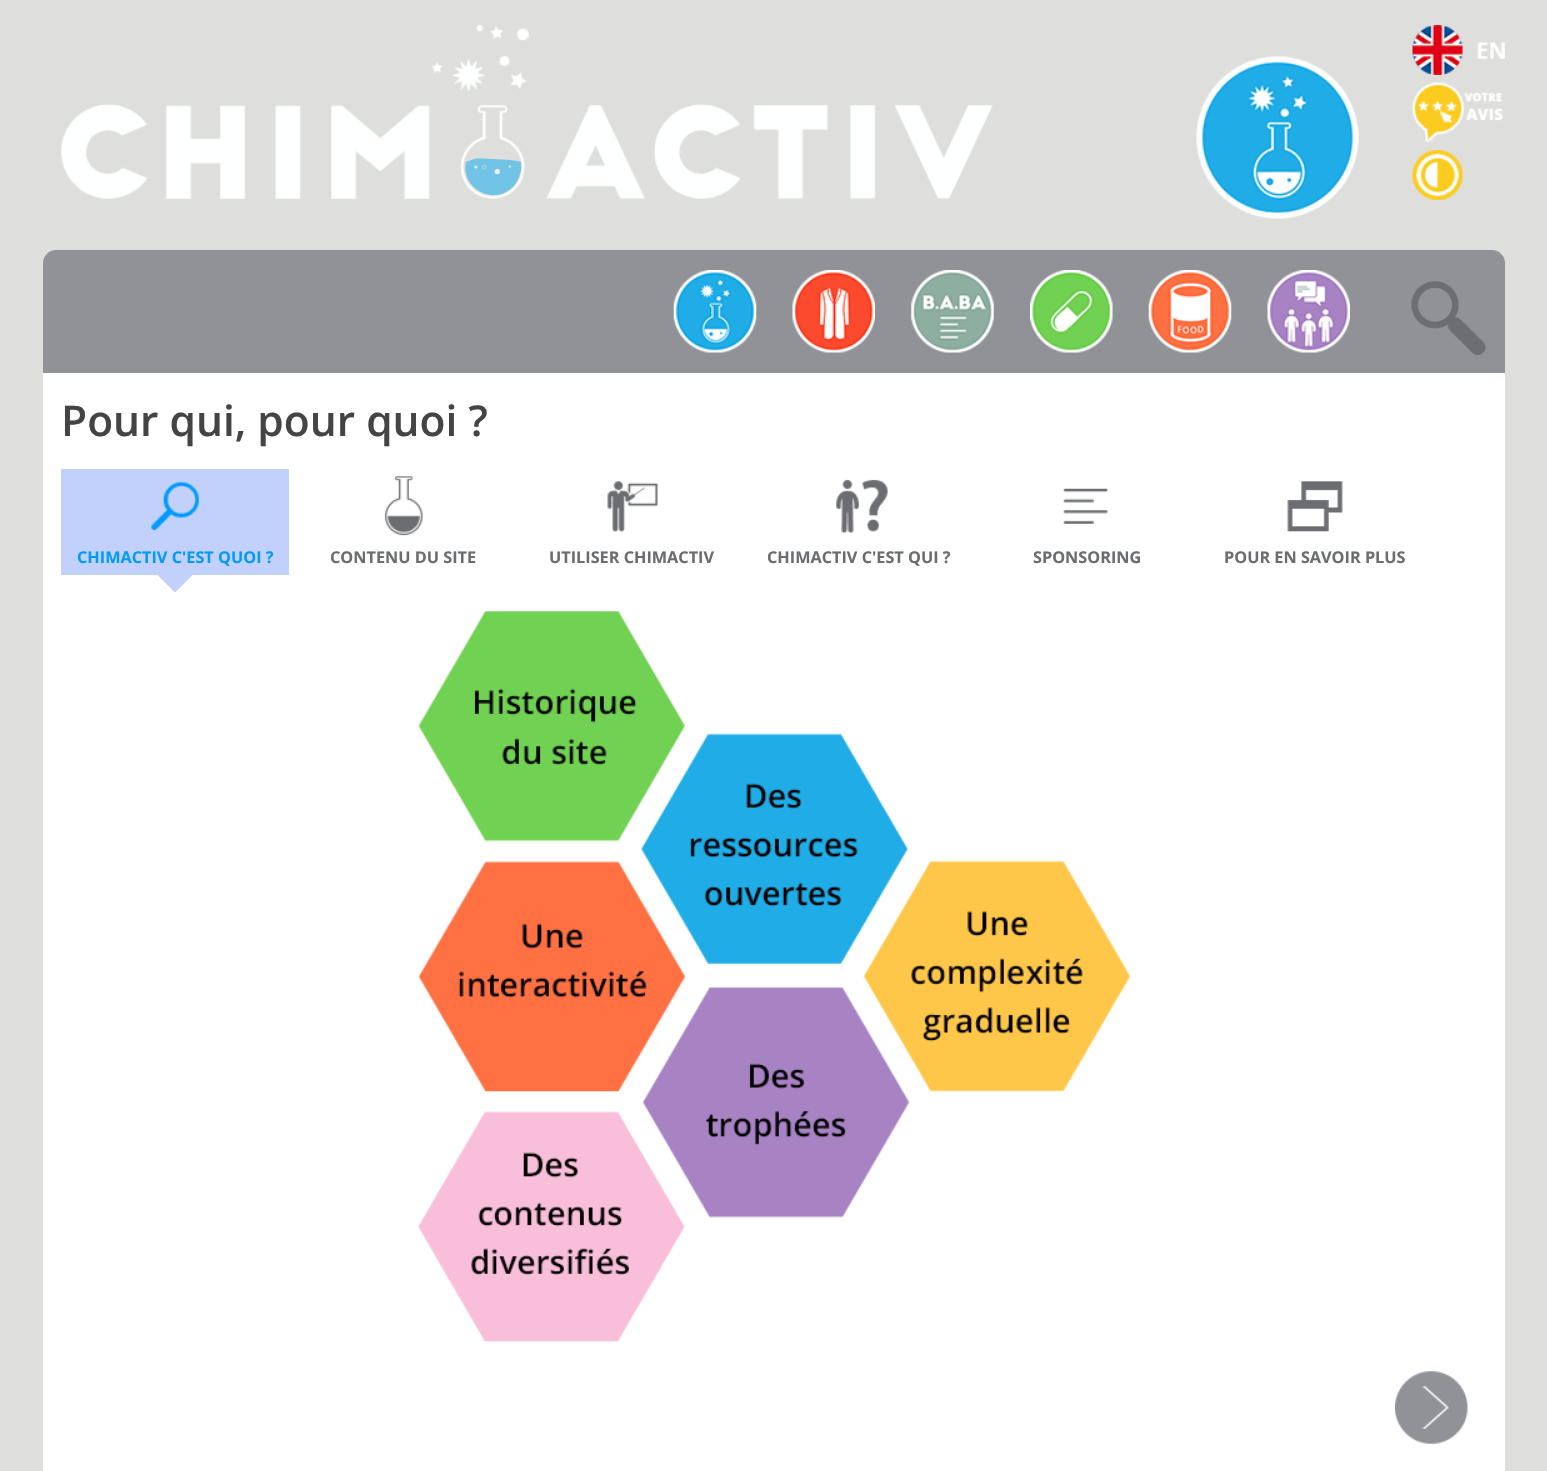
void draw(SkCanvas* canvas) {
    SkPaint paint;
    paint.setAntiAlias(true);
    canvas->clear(0xFFDEDEDD);
    canvas->drawImageRect(SkImages::DeferredFromEncodedData(SkData::MakeFromFileName("img1.png")), SkRect::MakeXYWH(61, 25, 932, 174), SkSamplingOptions());
    paint.setColor(0xFF71C4E6);
    canvas->drawPath(SkPathBuilder().moveTo(474, 159).cubicTo(480, 158, 486, 159, 493, 159).cubicTo(502, 160, 511, 159, 521, 162).cubicTo(522, 169, 520, 177, 516, 183).cubicTo(499, 208, 460, 191, 466, 162).close().detach(), paint);
    paint.setColor(0xFFEEEEEE);
    canvas->drawCircle(475.9f, 167.1f, 1.5f, paint);
    canvas->drawCircle(497.2f, 171.6f, 2.7f, paint);
    canvas->drawCircle(509.9f, 166.4f, 1, paint);
    paint.setStyle(SkPaint::kStroke_Style);
    paint.setStrokeWidth(0.4f);
    canvas->drawCircle(484.4f, 167.1f, 1.9f, paint);
    canvas->drawImageRect(SkImages::DeferredFromEncodedData(SkData::MakeFromFileName("img2.png")), SkRect::MakeXYWH(1196, 56, 163, 163), SkSamplingOptions());
    canvas->drawImageRect(SkImages::DeferredFromEncodedData(SkData::MakeFromFileName("img3.png")), SkRect::MakeXYWH(1412, 25, 93, 50), SkSamplingOptions());
    canvas->drawImageRect(SkImages::DeferredFromEncodedData(SkData::MakeFromFileName("img4.png")), SkRect::MakeXYWH(1412, 82, 91, 61), SkSamplingOptions());
    canvas->drawImageRect(SkImages::DeferredFromEncodedData(SkData::MakeFromFileName("img5.png")), SkRect::MakeXYWH(1412, 150, 51, 50), SkSamplingOptions());
    paint.setStyle(SkPaint::kFill_Style);
    paint.setColor(0xFF909298);
    canvas->drawPath(SkPathBuilder().moveTo(56, 250).lineTo(1492, 250).cubicTo(1499, 250, 1505, 256, 1505, 263).lineTo(1505, 373).lineTo(43, 373).lineTo(43, 263).cubicTo(43, 256, 49, 250, 56, 250).close().detach(), paint);
    canvas->drawImageRect(SkImages::DeferredFromEncodedData(SkData::MakeFromFileName("img6.png")), SkRect::MakeXYWH(673, 270, 84, 83), SkSamplingOptions());
    canvas->drawImageRect(SkImages::DeferredFromEncodedData(SkData::MakeFromFileName("img7.png")), SkRect::MakeXYWH(792, 270, 83, 83), SkSamplingOptions());
    canvas->drawImageRect(SkImages::DeferredFromEncodedData(SkData::MakeFromFileName("img8.png")), SkRect::MakeXYWH(911, 270, 83, 83), SkSamplingOptions());
    canvas->drawImageRect(SkImages::DeferredFromEncodedData(SkData::MakeFromFileName("img9.png")), SkRect::MakeXYWH(1030, 270, 83, 83), SkSamplingOptions());
    canvas->drawImageRect(SkImages::DeferredFromEncodedData(SkData::MakeFromFileName("img10.png")), SkRect::MakeXYWH(1148, 270, 84, 83), SkSamplingOptions());
    canvas->drawImageRect(SkImages::DeferredFromEncodedData(SkData::MakeFromFileName("img11.png")), SkRect::MakeXYWH(1267, 270, 83, 83), SkSamplingOptions());
    canvas->drawImageRect(SkImages::DeferredFromEncodedData(SkData::MakeFromFileName("img12.png")), SkRect::MakeXYWH(1411, 281, 75, 74), SkSamplingOptions());
    paint.setColor(0xFFFFFFFF);
    canvas->drawRect(SkRect::MakeXYWH(43, 373, 1462, 1098), paint);
    SkFont font1(fontMgr->matchFamilyStyle("Open Sans", SkFontStyle(600, SkFontStyle::kNormal_Width, SkFontStyle::kUpright_Slant)), 42.5f);
    font1.setSubpixel(true);
    paint.setColor(0xFF444444);
    canvas->drawString("Pour qui, pour quoi ?", 61, 436, font1, paint);
    paint.setColor(0xFFC1D1FB);
    canvas->drawRect(SkRect::MakeXYWH(61, 469, 228, 106), paint);
    canvas->drawImageRect(SkImages::DeferredFromEncodedData(SkData::MakeFromFileName("img13.png")), SkRect::MakeXYWH(151, 481, 48, 50), SkSamplingOptions());
    SkFont font2(fontMgr->matchFamilyStyle("Open Sans", SkFontStyle::Bold()), 16.25f);
    font2.setSubpixel(true);
    paint.setColor(0xFF039BFB);
    canvas->drawString("CHIMACTIV C'EST QUOI ?", 77, 563, font2, paint);
    paint.setColor(0xFFC1D1FB);
    canvas->drawPath(SkPathBuilder().moveTo(157.5f, 575).lineTo(192.5f, 575).lineTo(175, 592.5f).close().detach(), paint);
    canvas->drawImageRect(SkImages::DeferredFromEncodedData(SkData::MakeFromFileName("img14.png")), SkRect::MakeXYWH(384, 476, 39, 60), SkSamplingOptions());
    paint.setColor(0xFF6B6D71);
    canvas->drawString("CONTENU DU SITE", 330, 563, font2, paint);
    canvas->drawImageRect(SkImages::DeferredFromEncodedData(SkData::MakeFromFileName("img15.png")), SkRect::MakeXYWH(607, 481, 51, 51), SkSamplingOptions());
    canvas->drawString("UTILISER CHIMACTIV", 549, 563, font2, paint);
    canvas->drawImageRect(SkImages::DeferredFromEncodedData(SkData::MakeFromFileName("img16.png")), SkRect::MakeXYWH(836, 479, 52, 54), SkSamplingOptions());
    canvas->drawString("CHIMACTIV C'EST QUI ?", 767, 563, font2, paint);
    canvas->drawImageRect(SkImages::DeferredFromEncodedData(SkData::MakeFromFileName("img17.png")), SkRect::MakeXYWH(1063, 488, 45, 36), SkSamplingOptions());
    canvas->drawString("SPONSORING", 1033, 563, font2, paint);
    canvas->drawImageRect(SkImages::DeferredFromEncodedData(SkData::MakeFromFileName("img18.png")), SkRect::MakeXYWH(1287, 481, 56, 51), SkSamplingOptions());
    canvas->drawString("POUR EN SAVOIR PLUS", 1224, 563, font2, paint);
    canvas->drawImageRect(SkImages::DeferredFromEncodedData(SkData::MakeFromFileName("img19.png")), SkRect::MakeXYWH(417, 611, 713, 731), SkSamplingOptions());
    canvas->drawImageRect(SkImages::DeferredFromEncodedData(SkData::MakeFromFileName("img20.png")), SkRect::MakeXYWH(1395, 1371, 73, 73), SkSamplingOptions());
}
